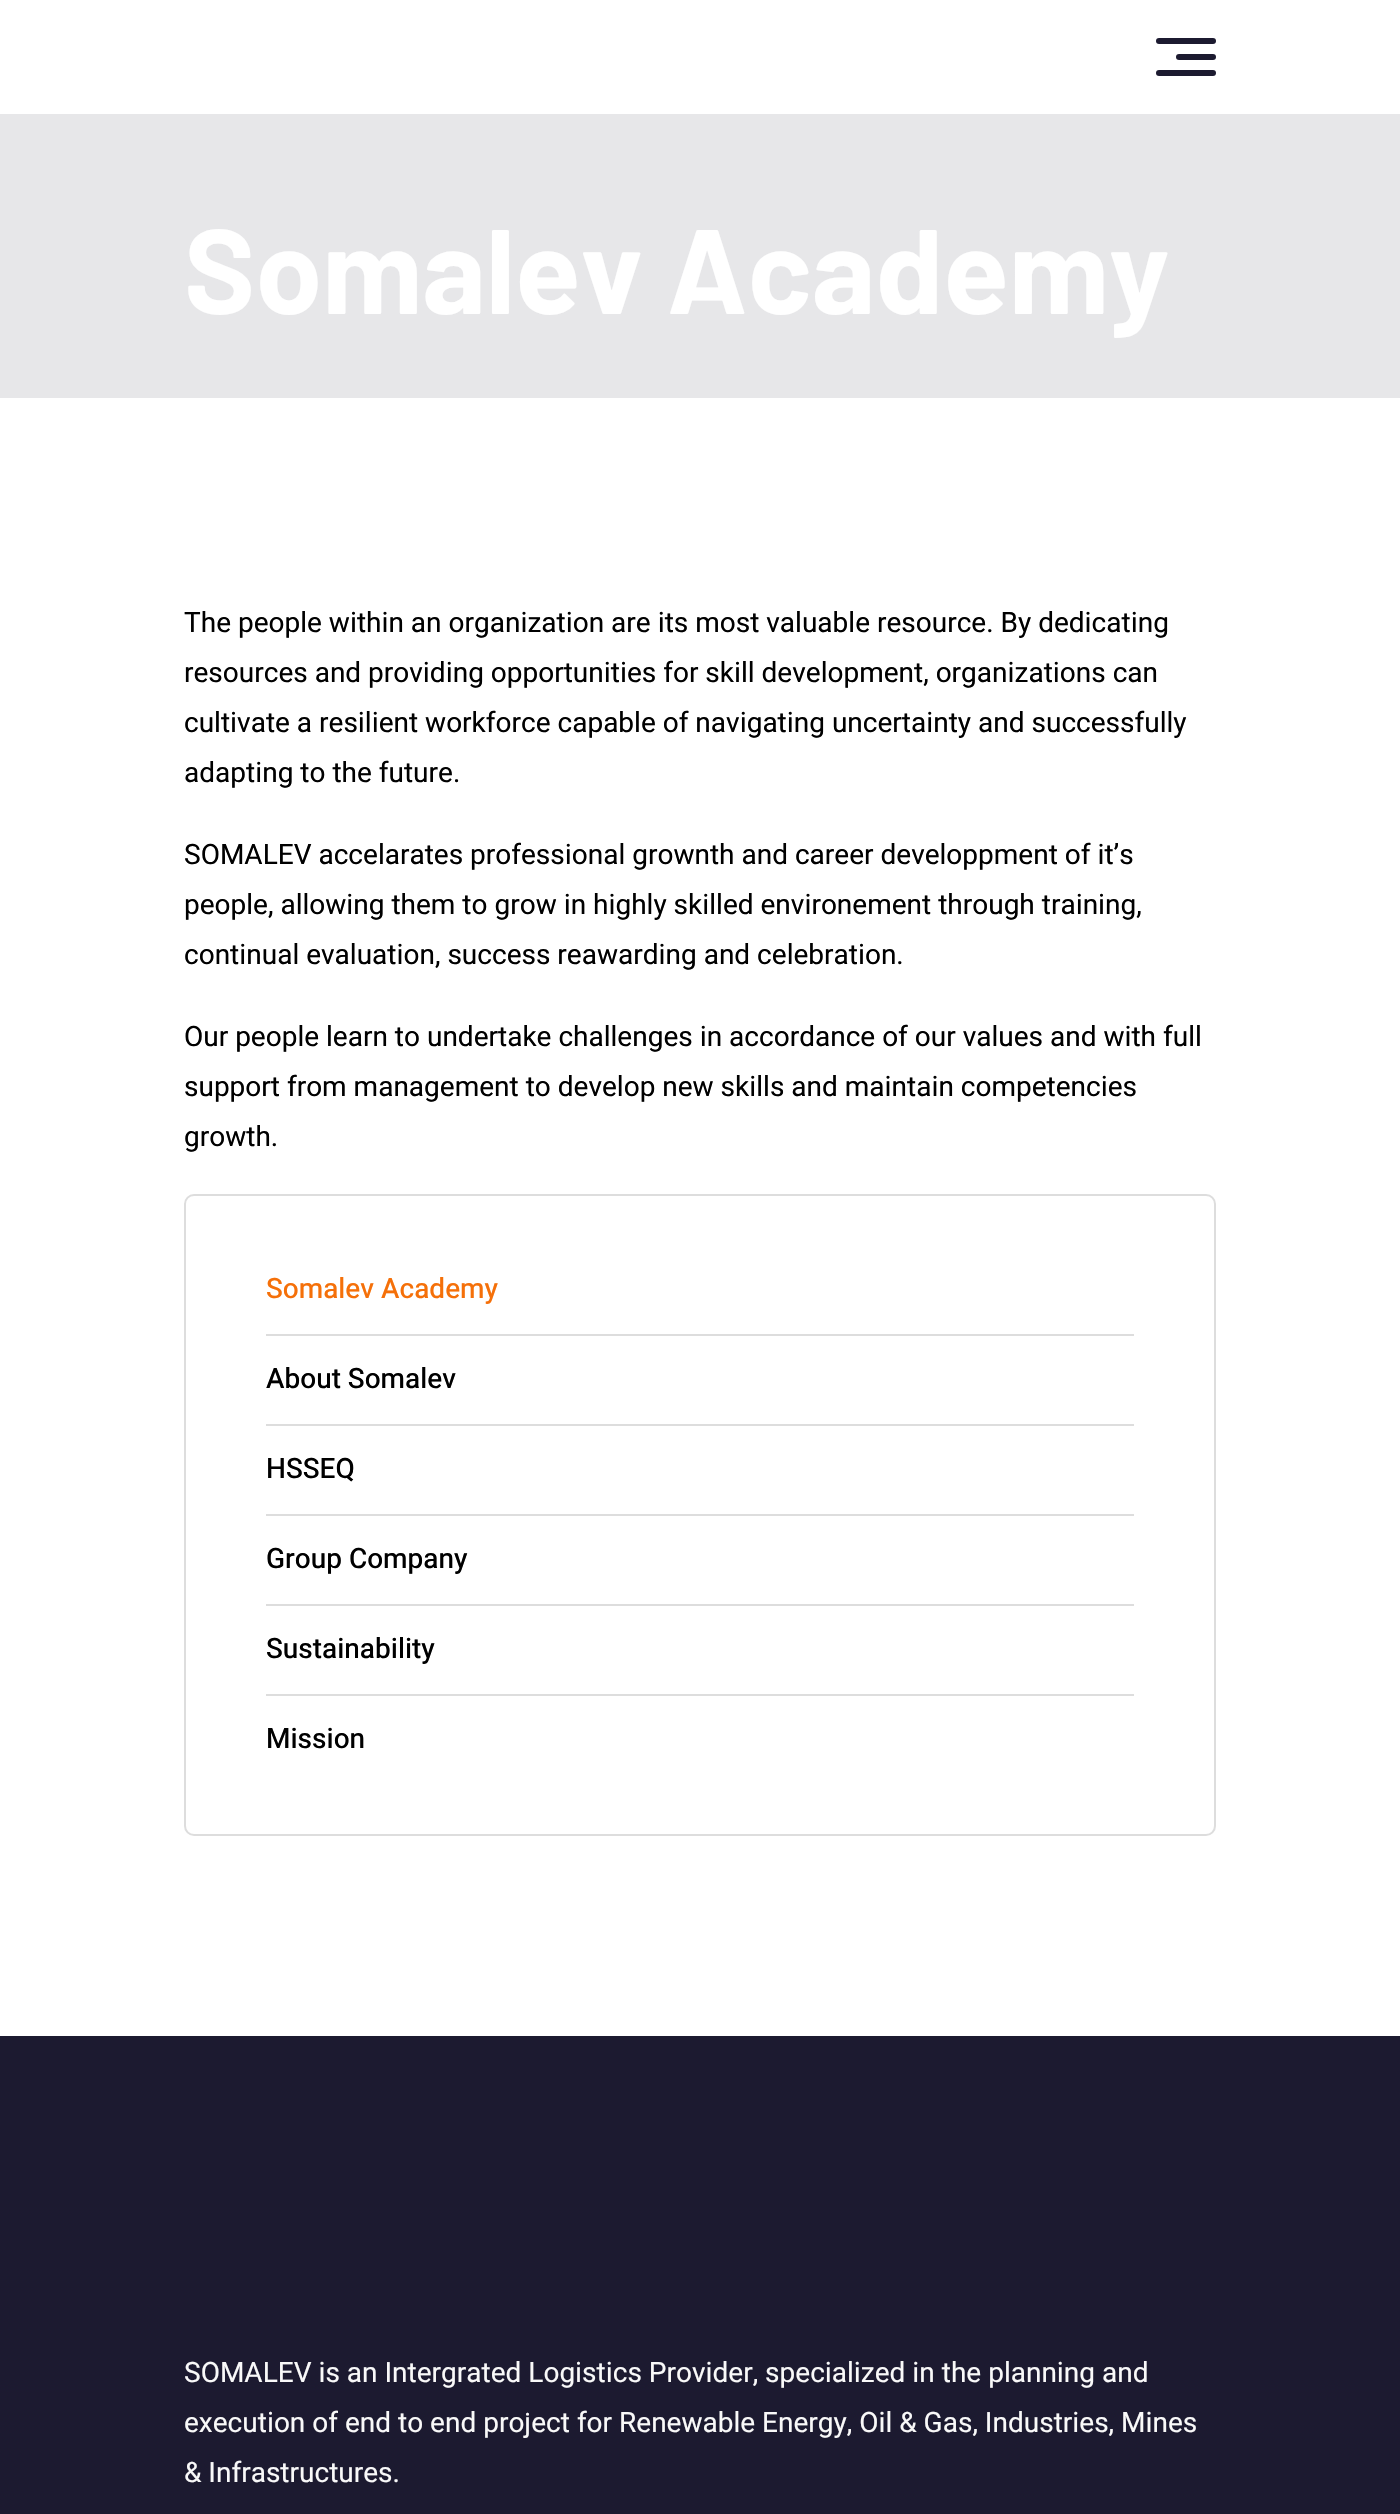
void draw(SkCanvas* canvas) {
    SkPaint paint;
    paint.setAntiAlias(true);
    canvas->clear(0xFFFFFFFF);
    paint.setColor(0xFF1C1A30);
    canvas->drawRoundRect(SkRect::MakeXYWH(1156, 38, 60, 6), 3, 3, paint);
    canvas->drawRoundRect(SkRect::MakeXYWH(1176, 54, 40, 6), 3, 3, paint);
    canvas->drawRoundRect(SkRect::MakeXYWH(1156, 70, 60, 6), 3, 3, paint);
    paint.setColor(0xFFE7E7E9);
    canvas->drawRect(SkRect::MakeXYWH(0, 114, 1400, 284), paint);
    SkFont font1(fontMgr->matchFamilyStyle("Barlow", SkFontStyle::Bold()), 120);
    font1.setSubpixel(true);
    paint.setColor(0xFFFFFFFF);
    canvas->drawString("Somalev Academy", 184, 314, font1, paint);
    SkFont font2(fontMgr->matchFamilyStyle("Heebo", SkFontStyle::Normal()), 28);
    font2.setSubpixel(true);
    paint.setColor(0xFF000000);
    canvas->drawString("The people within an organization are its most valuable resource. By dedicating", 184, 632, font2, paint);
    canvas->drawString("resources and providing opportunities for skill development, organizations can", 184, 682, font2, paint);
    canvas->drawString("cultivate a resilient workforce capable of navigating uncertainty and successfully", 184, 732, font2, paint);
    canvas->drawString("adapting to the future.", 184, 782, font2, paint);
    canvas->drawString("SOMALEV accelarates professional grownth and career developpment of it’s", 184, 864, font2, paint);
    canvas->drawString("people, allowing them to grow in highly skilled environement through training,", 184, 914, font2, paint);
    canvas->drawString("continual evaluation, success reawarding and celebration.", 184, 964, font2, paint);
    canvas->drawString("Our people learn to undertake challenges in accordance of our values and with full", 184, 1046, font2, paint);
    canvas->drawString("support from management to develop new skills and maintain competencies", 184, 1096, font2, paint);
    canvas->drawString("growth.", 184, 1146, font2, paint);
    paint.setStyle(SkPaint::kStroke_Style);
    paint.setStrokeWidth(2);
    paint.setColor(0xFFDDDDDD);
    canvas->drawRoundRect(SkRect::MakeXYWH(185, 1195, 1030, 640), 9, 9, paint);
    paint.setStyle(SkPaint::kFill_Style);
    canvas->drawRect(SkRect::MakeXYWH(266, 1334, 868, 2), paint);
    SkFont font3(fontMgr->matchFamilyStyle("Heebo", SkFontStyle(500, SkFontStyle::kNormal_Width, SkFontStyle::kUpright_Slant)), 28);
    font3.setSubpixel(true);
    paint.setColor(0xFFF57009);
    canvas->drawString("Somalev Academy", 266, 1298, font3, paint);
    paint.setColor(0xFFDDDDDD);
    canvas->drawRect(SkRect::MakeXYWH(266, 1424, 868, 2), paint);
    paint.setColor(0xFF000000);
    canvas->drawString("About Somalev", 266, 1388, font3, paint);
    paint.setColor(0xFFDDDDDD);
    canvas->drawRect(SkRect::MakeXYWH(266, 1514, 868, 2), paint);
    paint.setColor(0xFF000000);
    canvas->drawString("HSSEQ", 266, 1478, font3, paint);
    paint.setColor(0xFFDDDDDD);
    canvas->drawRect(SkRect::MakeXYWH(266, 1604, 868, 2), paint);
    paint.setColor(0xFF000000);
    canvas->drawString("Group Company", 266, 1568, font3, paint);
    paint.setColor(0xFFDDDDDD);
    canvas->drawRect(SkRect::MakeXYWH(266, 1694, 868, 2), paint);
    paint.setColor(0xFF000000);
    canvas->drawString("Sustainability", 266, 1658, font3, paint);
    canvas->drawString("Mission", 266, 1748, font3, paint);
    paint.setColor(0xFF1C1A30);
    canvas->drawRect(SkRect::MakeXYWH(0, 2036, 1400, 478), paint);
    paint.setColor(0xFFF9F9F9);
    canvas->drawString("SOMALEV is an Intergrated Logistics Provider, specialized in the planning and", 184, 2382, font2, paint);
    canvas->drawString("execution of end to end project for Renewable Energy, Oil & Gas, Industries, Mines", 184, 2432, font2, paint);
    canvas->drawString("& Infrastructures.", 184, 2482, font2, paint);
}
